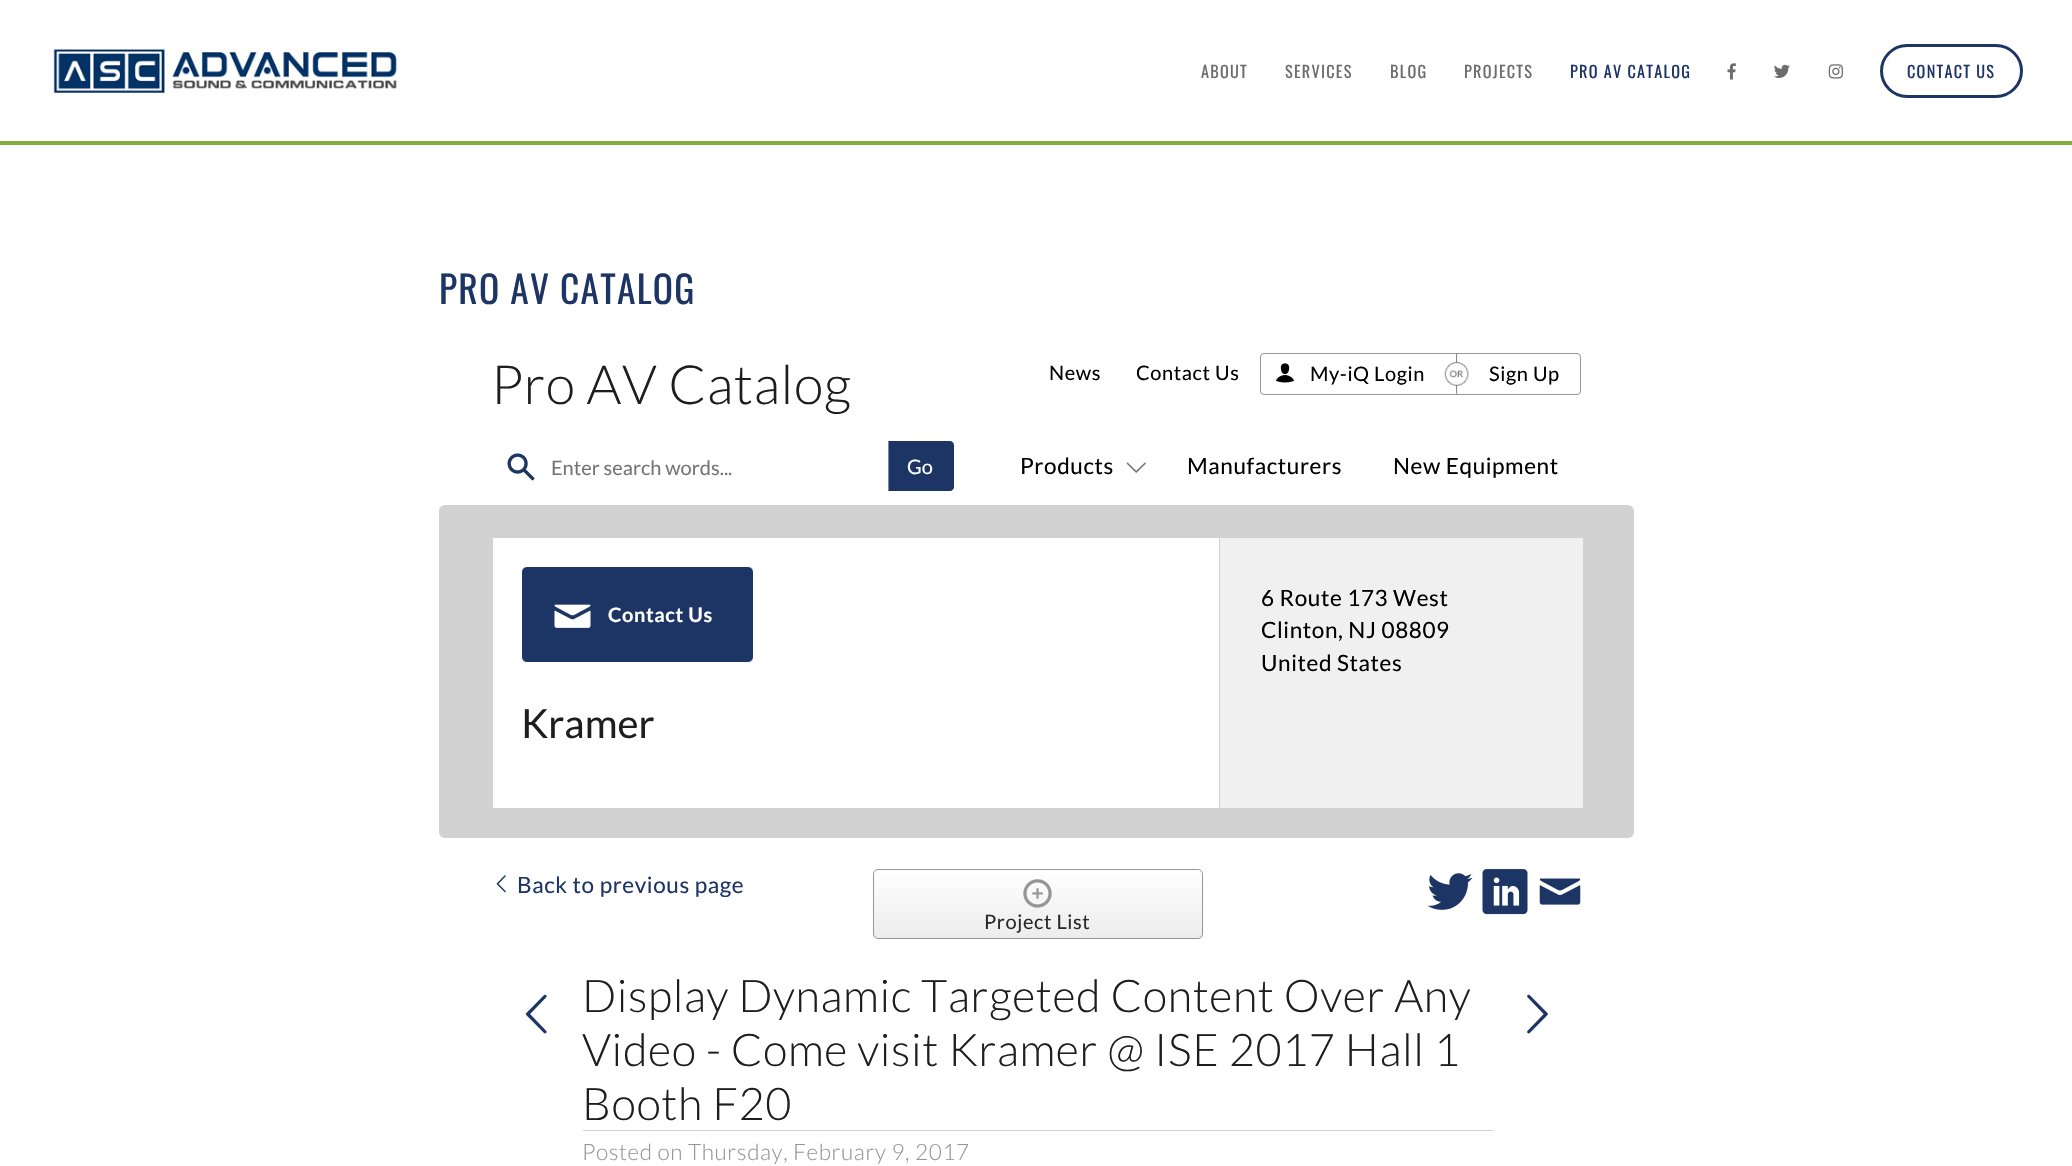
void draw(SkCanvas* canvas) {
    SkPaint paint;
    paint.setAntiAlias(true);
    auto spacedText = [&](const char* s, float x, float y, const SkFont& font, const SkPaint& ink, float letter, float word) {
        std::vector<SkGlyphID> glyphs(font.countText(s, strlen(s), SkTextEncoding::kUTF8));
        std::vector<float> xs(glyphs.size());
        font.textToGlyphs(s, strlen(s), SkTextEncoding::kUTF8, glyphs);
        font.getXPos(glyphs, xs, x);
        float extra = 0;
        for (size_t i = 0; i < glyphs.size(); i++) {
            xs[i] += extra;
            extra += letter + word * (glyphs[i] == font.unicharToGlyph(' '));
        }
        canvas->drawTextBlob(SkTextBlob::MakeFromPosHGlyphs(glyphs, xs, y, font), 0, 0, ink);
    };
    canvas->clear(0xFFFFFFFF);
    paint.setColor(0xFF83AE40);
    canvas->drawRect(SkRect::MakeXYWH(0, 141, 2072, 4), paint);
    canvas->drawImageRect(SkImages::DeferredFromEncodedData(SkData::MakeFromFileName("img1.png")), SkRect::MakeXYWH(53, 49, 344, 44), SkSamplingOptions());
    SkFont font1(fontMgr->matchFamilyStyle("Oswald", SkFontStyle::Normal()), 16.25f);
    font1.setSubpixel(true);
    paint.setColor(0xFF6C6C6C);
    spacedText("ABOUT", 1201, 78, font1, paint, 1.25f, 0);
    spacedText("SERVICES", 1285, 78, font1, paint, 1.25f, 0);
    spacedText("BLOG", 1390, 78, font1, paint, 1.25f, 0);
    spacedText("PROJECTS", 1464, 78, font1, paint, 1.25f, 0);
    paint.setColor(0xFF1C3564);
    spacedText("PRO AV CATALOG", 1570, 78, font1, paint, 1.25f, 0);
    canvas->drawImageRect(SkImages::DeferredFromEncodedData(SkData::MakeFromFileName("img2.png")), SkRect::MakeXYWH(1727, 63, 9, 17), SkSamplingOptions());
    canvas->drawImageRect(SkImages::DeferredFromEncodedData(SkData::MakeFromFileName("img3.png")), SkRect::MakeXYWH(1774, 64, 16, 14), SkSamplingOptions());
    canvas->drawImageRect(SkImages::DeferredFromEncodedData(SkData::MakeFromFileName("img4.png")), SkRect::MakeXYWH(1828, 64, 15, 15), SkSamplingOptions());
    paint.setStyle(SkPaint::kStroke_Style);
    paint.setStrokeWidth(3);
    canvas->drawRoundRect(SkRect::MakeXYWH(1881.5f, 45.5f, 140, 51), 25.5f, 25.5f, paint);
    paint.setStyle(SkPaint::kFill_Style);
    spacedText("CONTACT US", 1907, 78, font1, paint, 1.25f, 0);
    SkFont font2(fontMgr->matchFamilyStyle("Oswald", SkFontStyle::Normal()), 37.5f);
    font2.setSubpixel(true);
    spacedText("PRO AV CATALOG", 439, 304, font2, paint, 1.25f, 0);
    SkFont font3(fontMgr->matchFamilyStyle("Lato", SkFontStyle(300, SkFontStyle::kNormal_Width, SkFontStyle::kUpright_Slant)), 54);
    font3.setSubpixel(true);
    paint.setColor(0xFF1E1E1E);
    spacedText("Pro AV Catalog", 491, 404, font3, paint, 0.6f, 0);
    SkFont font4(fontMgr->matchFamilyStyle("Lato", SkFontStyle::Normal()), 20);
    font4.setSubpixel(true);
    paint.setColor(0xFF000000);
    spacedText("News", 1049, 380, font4, paint, 0.6f, 0);
    spacedText("Contact Us", 1136, 380, font4, paint, 0.6f, 0);
    paint.setStyle(SkPaint::kStroke_Style);
    paint.setStrokeWidth(1);
    paint.setColor(0xFF969696);
    canvas->drawRoundRect(SkRect::MakeXYWH(1260.5f, 353.5f, 320, 41), 3.5f, 3.5f, paint);
    canvas->drawImageRect(SkImages::DeferredFromEncodedData(SkData::MakeFromFileName("img5.png")), SkRect::MakeXYWH(1275, 363, 20, 20), SkSamplingOptions());
    paint.setStyle(SkPaint::kFill_Style);
    paint.setColor(0xFF000000);
    spacedText("My-iQ Login", 1310, 381, font4, paint, 0.6f, 0);
    canvas->drawImageRect(SkImages::DeferredFromEncodedData(SkData::MakeFromFileName("img6.png")), SkRect::MakeXYWH(1444, 353, 25, 41), SkSamplingOptions());
    spacedText("Sign Up", 1489, 381, font4, paint, 0.6f, 0);
    canvas->drawImageRect(SkImages::DeferredFromEncodedData(SkData::MakeFromFileName("img7.png")), SkRect::MakeXYWH(507, 453, 28, 28), SkSamplingOptions());
    paint.setColor(0xFF757575);
    canvas->drawString("Enter search words...", 551, 475, font4, paint);
    paint.setColor(0xFF1C3564);
    canvas->drawPath(SkPathBuilder().moveTo(888, 441).lineTo(950, 441).cubicTo(952, 441, 954, 443, 954, 445).lineTo(954, 487).cubicTo(954, 489, 952, 491, 950, 491).lineTo(888, 491).close().detach(), paint);
    paint.setColor(0xFF7786A2);
    canvas->drawRect(SkRect::MakeXYWH(888, 441, 1, 50), paint);
    paint.setColor(0xFFFFFFFF);
    canvas->drawString("Go", 907, 474, font4, paint);
    SkFont font5(fontMgr->matchFamilyStyle("Lato", SkFontStyle::Normal()), 22.5f);
    font5.setSubpixel(true);
    paint.setColor(0xFF000000);
    spacedText("Products", 1020, 474, font5, paint, 0.6f, 0);
    canvas->drawImageRect(SkImages::DeferredFromEncodedData(SkData::MakeFromFileName("img8.png")), SkRect::MakeXYWH(1126, 462, 20, 11), SkSamplingOptions());
    spacedText("Manufacturers", 1187, 474, font5, paint, 0.6f, 0);
    spacedText("New Equipment", 1393, 474, font5, paint, 0.6f, 0);
    paint.setColor(0xFFD2D2D2);
    canvas->drawRoundRect(SkRect::MakeXYWH(439, 505, 1195, 333), 6, 6, paint);
    paint.setColor(0xFFFFFFFF);
    canvas->drawRect(SkRect::MakeXYWH(493, 538, 726, 270), paint);
    paint.setColor(0xFF1C3564);
    canvas->drawRoundRect(SkRect::MakeXYWH(521.5f, 566.5f, 232, 96), 5.5f, 5.5f, paint);
    paint.setStyle(SkPaint::kStroke_Style);
    paint.setColor(0xFFFFFFFF);
    canvas->drawRoundRect(SkRect::MakeXYWH(521.5f, 566.5f, 232, 96), 5.5f, 5.5f, paint);
    canvas->drawImageRect(SkImages::DeferredFromEncodedData(SkData::MakeFromFileName("img9.png")), SkRect::MakeXYWH(554, 604, 37, 24), SkSamplingOptions());
    SkFont font6(fontMgr->matchFamilyStyle("Lato", SkFontStyle::Bold()), 20);
    font6.setSubpixel(true);
    paint.setStyle(SkPaint::kFill_Style);
    spacedText("Contact Us", 608, 622, font6, paint, 0.6f, 0);
    SkFont font7(fontMgr->matchFamilyStyle("Lato", SkFontStyle::Normal()), 40);
    font7.setSubpixel(true);
    paint.setColor(0xFF1E1E1E);
    canvas->drawString("Kramer", 521, 738, font7, paint);
    paint.setColor(0xFFF0F0F0);
    canvas->drawRect(SkRect::MakeXYWH(1220, 538, 363, 270), paint);
    paint.setColor(0xFF000000);
    spacedText("6 Route 173 West", 1261, 606, font5, paint, 0.6f, 0);
    spacedText("Clinton, NJ 08809", 1261, 638, font5, paint, 0.6f, 0);
    spacedText("United States", 1261, 671, font5, paint, 0.6f, 0);
    canvas->drawImageRect(SkImages::DeferredFromEncodedData(SkData::MakeFromFileName("img10.png")), SkRect::MakeXYWH(496, 875, 10, 18), SkSamplingOptions());
    paint.setColor(0xFF1C3564);
    spacedText("Back to previous page", 517, 893, font5, paint, 0.6f, 0);
    canvas->drawImageRect(SkImages::DeferredFromEncodedData(SkData::MakeFromFileName("img11.png")), SkRect::MakeXYWH(1427, 873, 46, 37), SkSamplingOptions());
    canvas->drawImageRect(SkImages::DeferredFromEncodedData(SkData::MakeFromFileName("img12.png")), SkRect::MakeXYWH(1482, 869, 46, 46), SkSamplingOptions());
    canvas->drawImageRect(SkImages::DeferredFromEncodedData(SkData::MakeFromFileName("img13.png")), SkRect::MakeXYWH(1539, 878, 42, 27), SkSamplingOptions());
    canvas->save();
    canvas->clipPath(SkPathBuilder().moveTo(878, 869).lineTo(1198, 869).cubicTo(1201, 869, 1203, 871, 1203, 874).lineTo(1203, 934).cubicTo(1203, 937, 1201, 939, 1198, 939).lineTo(878, 939).cubicTo(875, 939, 873, 937, 873, 934).lineTo(873, 874).cubicTo(873, 871, 875, 869, 878, 869).close().detach(), true);
    {
        const SkColor colors[] = {0xFFFFFFFF, 0xFFECECEC};
        const float stops[] = {0, 1};
        const SkPoint ends[] = {{1038, 870}, {1038, 938}};
        paint.setShader(SkGradientShader::MakeLinear(ends, colors, stops, 2, SkTileMode::kClamp));
        paint.setAlpha(255);
    }
    canvas->drawRect(SkRect::MakeXYWH(873, 870, 330, 68), paint);
    canvas->restore();
    paint.setStyle(SkPaint::kStroke_Style);
    paint.setShader(nullptr);
    paint.setColor(0xFF969696);
    canvas->drawRoundRect(SkRect::MakeXYWH(873.5f, 869.5f, 329, 69), 4.5f, 4.5f, paint);
    canvas->drawImageRect(SkImages::DeferredFromEncodedData(SkData::MakeFromFileName("img14.png")), SkRect::MakeXYWH(1023, 879, 29, 29), SkSamplingOptions());
    paint.setStyle(SkPaint::kFill_Style);
    paint.setColor(0xFF2A2A2A);
    spacedText("Project List", 984, 929, font4, paint, 0.6f, 0);
    canvas->drawImageRect(SkImages::DeferredFromEncodedData(SkData::MakeFromFileName("img15.png")), SkRect::MakeXYWH(525, 994, 22, 40), SkSamplingOptions());
    SkFont font8(fontMgr->matchFamilyStyle("Lato", SkFontStyle(300, SkFontStyle::kNormal_Width, SkFontStyle::kUpright_Slant)), 45);
    font8.setSubpixel(true);
    paint.setColor(0xFF1E1E1E);
    spacedText("Display Dynamic Targeted Content Over Any", 582, 1012, font8, paint, 0.6f, 0);
    spacedText("Video - Come visit Kramer @ ISE 2017 Hall 1", 582, 1066, font8, paint, 0.6f, 0);
    spacedText("Booth F20", 582, 1120, font8, paint, 0.6f, 0);
    paint.setColor(0xFFD2D2D2);
    canvas->drawRect(SkRect::MakeXYWH(583, 1130, 910, 1), paint);
    SkFont font9(fontMgr->matchFamilyStyle("Lato", SkFontStyle(300, SkFontStyle::kNormal_Width, SkFontStyle::kUpright_Slant)), 22.5f);
    font9.setSubpixel(true);
    paint.setColor(0xFF969696);
    spacedText("Posted on Thursday, February 9, 2017", 582, 1160, font9, paint, 0.6f, 0);
    canvas->drawImageRect(SkImages::DeferredFromEncodedData(SkData::MakeFromFileName("img16.png")), SkRect::MakeXYWH(1527, 994, 21, 40), SkSamplingOptions());
}
